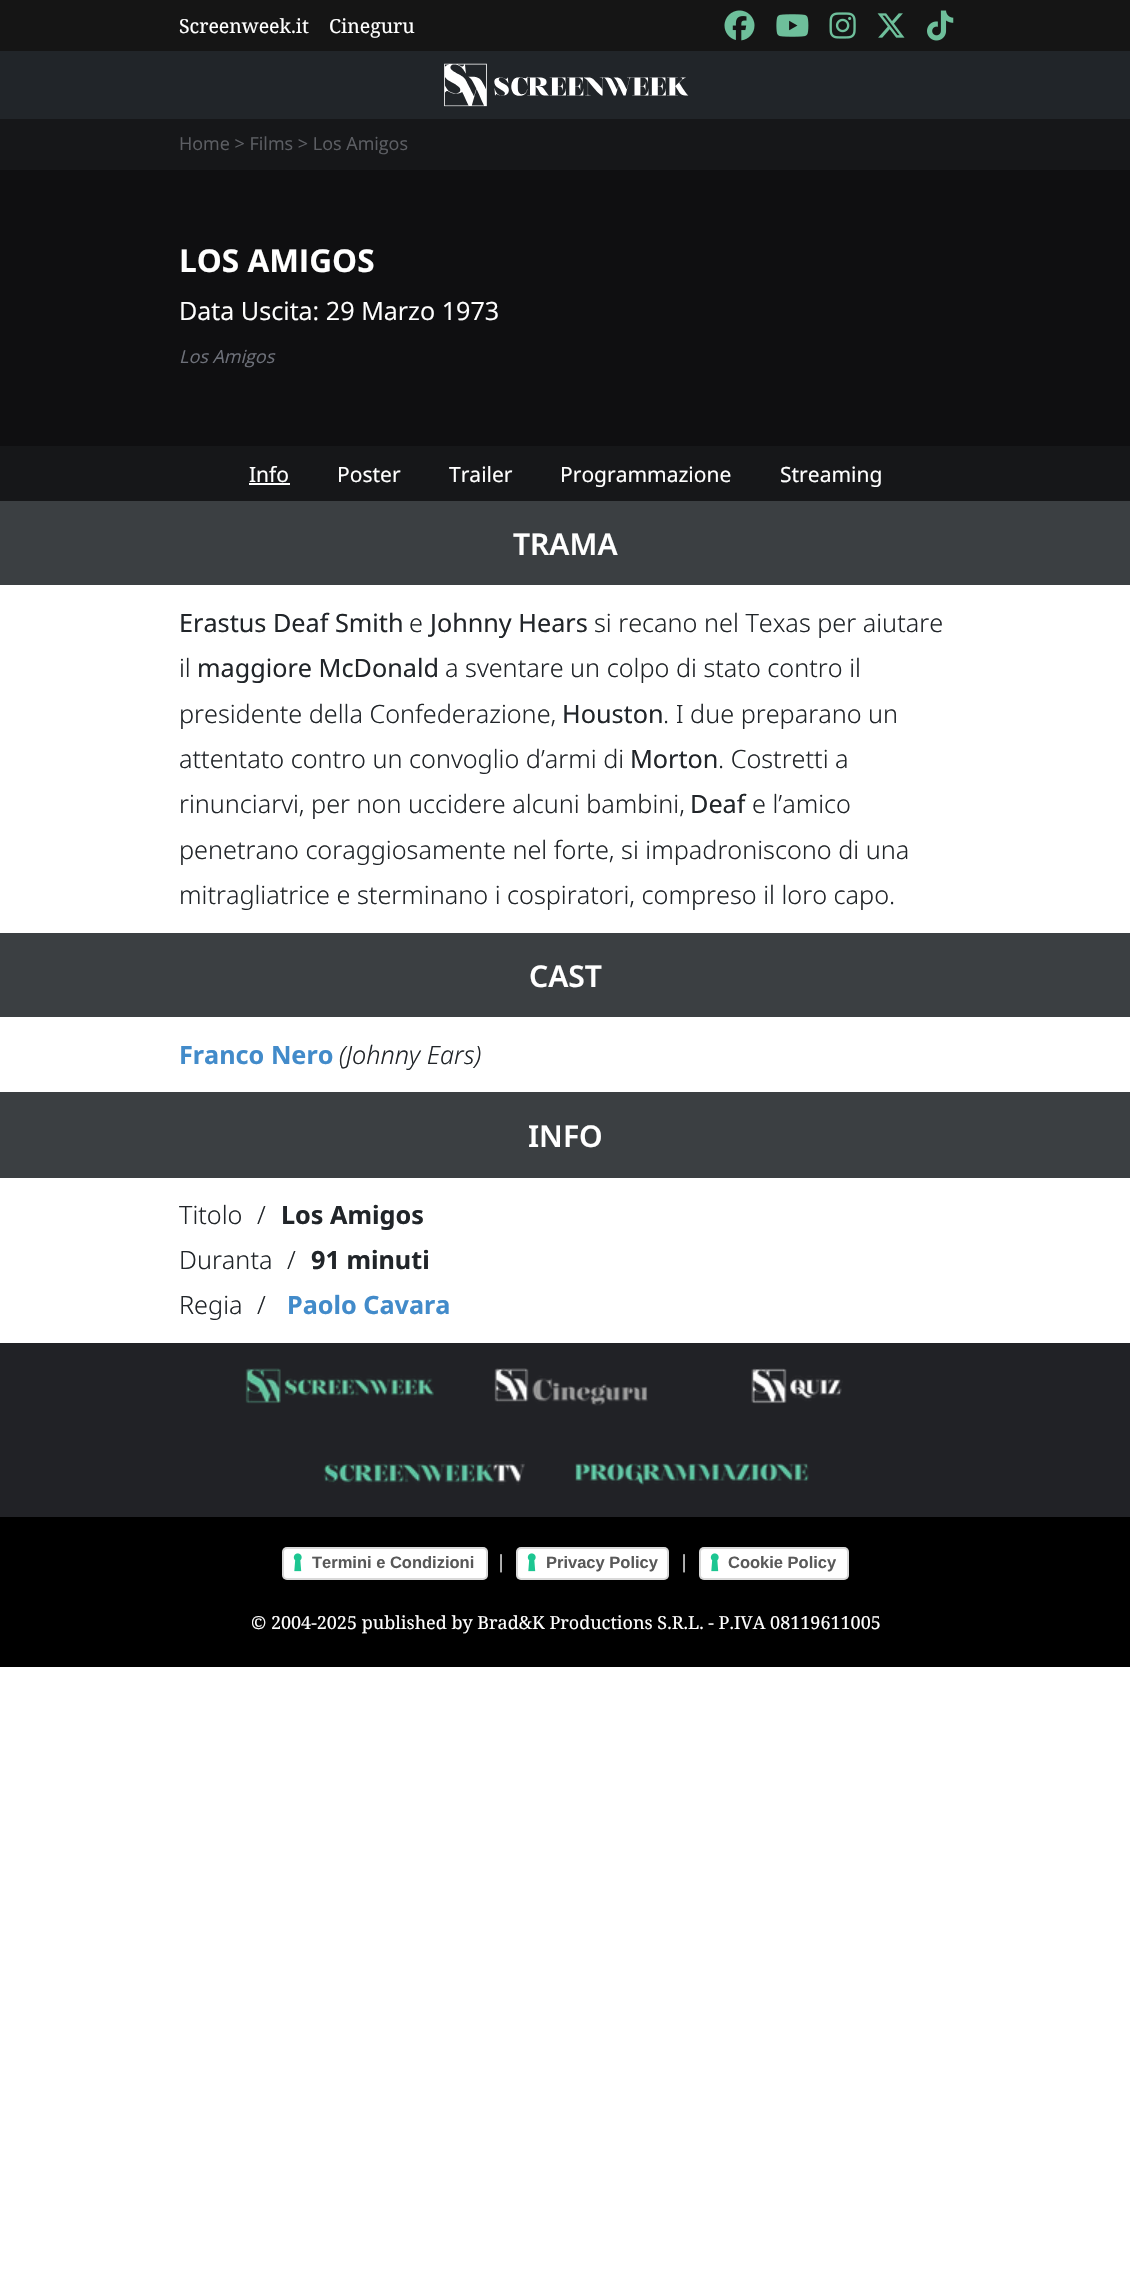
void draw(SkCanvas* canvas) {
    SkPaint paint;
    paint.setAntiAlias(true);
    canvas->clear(0xFFFFFFFF);
    paint.setColor(0xFF151515);
    canvas->drawRect(SkRect::MakeXYWH(0, 0, 1130, 51), paint);
    SkFont font1(fontMgr->matchFamilyStyle("Noto Serif", SkFontStyle::Normal()), 19.5f);
    font1.setSubpixel(true);
    paint.setColor(0xFFFFFFFF);
    canvas->drawString("Screenweek.it", 179, 33, font1, paint);
    canvas->drawString("Cineguru", 329, 33, font1, paint);
    canvas->drawImageRect(SkImages::DeferredFromEncodedData(SkData::MakeFromFileName("img1.png")), SkRect::MakeXYWH(724, 10, 31, 31), SkSamplingOptions());
    canvas->drawImageRect(SkImages::DeferredFromEncodedData(SkData::MakeFromFileName("img2.png")), SkRect::MakeXYWH(776, 14, 33, 23), SkSamplingOptions());
    canvas->drawImageRect(SkImages::DeferredFromEncodedData(SkData::MakeFromFileName("img3.png")), SkRect::MakeXYWH(829, 12, 27, 27), SkSamplingOptions());
    canvas->drawImageRect(SkImages::DeferredFromEncodedData(SkData::MakeFromFileName("img4.png")), SkRect::MakeXYWH(877, 13, 28, 25), SkSamplingOptions());
    canvas->drawImageRect(SkImages::DeferredFromEncodedData(SkData::MakeFromFileName("img5.png")), SkRect::MakeXYWH(927, 10, 27, 31), SkSamplingOptions());
    paint.setColor(0xFF212529);
    canvas->drawRect(SkRect::MakeXYWH(0, 51, 1130, 68), paint);
    canvas->drawImageRect(SkImages::DeferredFromEncodedData(SkData::MakeFromFileName("img6.png")), SkRect::MakeXYWH(444, 63, 245, 44), SkSamplingOptions());
    paint.setColor(0xFF161719);
    canvas->drawRect(SkRect::MakeXYWH(0, 119, 1130, 51), paint);
    SkFont font2(fontMgr->matchFamilyStyle("Open Sans", SkFontStyle::Normal()), 18);
    font2.setSubpixel(true);
    paint.setColor(0xFF5C5E63);
    canvas->drawString("Home > Films > Los Amigos", 179, 150, font2, paint);
    paint.setColor(0xFF0F0F11);
    canvas->drawRect(SkRect::MakeXYWH(0, 170, 1130, 276), paint);
    SkFont font3(fontMgr->matchFamilyStyle("Open Sans", SkFontStyle::Bold()), 31.5f);
    font3.setSubpixel(true);
    paint.setColor(0xFFFFFFFF);
    canvas->drawString("LOS AMIGOS", 179, 272, font3, paint);
    SkFont font4(fontMgr->matchFamilyStyle("Open Sans", SkFontStyle::Normal()), 25.2f);
    font4.setSubpixel(true);
    canvas->drawString("Data Uscita: 29 Marzo 1973", 179, 320, font4, paint);
    SkFont font5(fontMgr->matchFamilyStyle("Open Sans", SkFontStyle::Italic()), 18);
    font5.setSubpixel(true);
    paint.setColor(0xFF6D7079);
    canvas->drawString("Los Amigos", 179, 363, font5, paint);
    paint.setColor(0xFF161719);
    canvas->drawRect(SkRect::MakeXYWH(0, 446, 1130, 55), paint);
    SkFont font6(fontMgr->matchFamilyStyle("Noto Sans", SkFontStyle::Normal()), 21);
    font6.setSubpixel(true);
    paint.setColor(0xFFFFFFFF);
    canvas->drawString("Info", 249, 482, font6, paint);
    canvas->drawRect(SkRect::MakeXYWH(249, 483, 41, 2), paint);
    canvas->drawString("Poster", 337, 482, font6, paint);
    canvas->drawString("Trailer", 449, 482, font6, paint);
    canvas->drawString("Programmazione", 560, 482, font6, paint);
    canvas->drawString("Streaming", 780, 482, font6, paint);
    paint.setColor(0xFF3B3F42);
    canvas->drawRect(SkRect::MakeXYWH(0, 501, 1130, 84), paint);
    SkFont font7(fontMgr->matchFamilyStyle("Noto Sans", SkFontStyle(600, SkFontStyle::kNormal_Width, SkFontStyle::kUpright_Slant)), 30);
    font7.setSubpixel(true);
    paint.setColor(0xFFFFFFFF);
    canvas->drawString("TRAMA", 513, 555, font7, paint);
    SkFont font8(fontMgr->matchFamilyStyle("Noto Sans", SkFontStyle::Normal()), 25.2f);
    font8.setSubpixel(true);
    paint.setColor(0xFF212529);
    canvas->drawString("Erastus Deaf Smith", 179, 632, font8, paint);
    SkFont font9(fontMgr->matchFamilyStyle("Noto Sans", SkFontStyle(300, SkFontStyle::kNormal_Width, SkFontStyle::kUpright_Slant)), 25.2f);
    font9.setSubpixel(true);
    canvas->drawString("e", 409, 632, font9, paint);
    canvas->drawString("Johnny Hears", 430, 632, font8, paint);
    canvas->drawString("si recano nel Texas per aiutare", 594, 632, font9, paint);
    canvas->drawString("il", 179, 677, font9, paint);
    canvas->drawString("maggiore McDonald", 197, 677, font8, paint);
    canvas->drawString("a sventare un colpo di stato contro il", 445, 677, font9, paint);
    canvas->drawString("presidente della Confederazione,", 179, 723, font9, paint);
    canvas->drawString("Houston", 562, 723, font8, paint);
    canvas->drawString(". I due preparano un", 663, 723, font9, paint);
    canvas->drawString("attentato contro un convoglio d’armi di", 179, 768, font9, paint);
    canvas->drawString("Morton", 630, 768, font8, paint);
    canvas->drawString(". Costretti a", 718, 768, font9, paint);
    canvas->drawString("rinunciarvi, per non uccidere alcuni bambini,", 179, 813, font9, paint);
    canvas->drawString("Deaf", 690, 813, font8, paint);
    canvas->drawString("e l’amico", 752, 813, font9, paint);
    canvas->drawString("penetrano coraggiosamente nel forte, si impadroniscono di una", 179, 859, font9, paint);
    canvas->drawString("mitragliatrice e sterminano i cospiratori, compreso il loro capo.", 179, 904, font9, paint);
    paint.setColor(0xFF3B3F42);
    canvas->drawRect(SkRect::MakeXYWH(0, 933, 1130, 84), paint);
    paint.setColor(0xFFFFFFFF);
    canvas->drawString("CAST", 529, 987, font7, paint);
    SkFont font10(fontMgr->matchFamilyStyle("Noto Sans", SkFontStyle::Bold()), 25.2f);
    font10.setSubpixel(true);
    paint.setColor(0xFF428BCA);
    canvas->drawString("Franco Nero", 179, 1064, font10, paint);
    SkFont font11(fontMgr->matchFamilyStyle("Noto Sans", SkFontStyle(300, SkFontStyle::kNormal_Width, SkFontStyle::kItalic_Slant)), 25.2f);
    font11.setSubpixel(true);
    paint.setColor(0xFF212529);
    canvas->drawString("(Johnny Ears)", 339, 1064, font11, paint);
    paint.setColor(0xFF3B3F42);
    canvas->drawRect(SkRect::MakeXYWH(0, 1092, 1130, 86), paint);
    paint.setColor(0xFFFFFFFF);
    canvas->drawString("INFO", 528, 1147, font7, paint);
    paint.setColor(0xFF212529);
    canvas->drawString("Titolo", 179, 1224, font9, paint);
    canvas->drawString("/", 257, 1224, font9, paint);
    canvas->drawString("Los Amigos", 281, 1224, font10, paint);
    canvas->drawString("Duranta", 179, 1269, font9, paint);
    canvas->drawString("/", 287, 1269, font9, paint);
    canvas->drawString("91 minuti", 311, 1269, font10, paint);
    canvas->drawString("Regia", 179, 1314, font9, paint);
    canvas->drawString("/", 257, 1314, font9, paint);
    paint.setColor(0xFF428BCA);
    canvas->drawString("Paolo Cavara", 287, 1314, font10, paint);
    paint.setColor(0xFF212226);
    canvas->drawRect(SkRect::MakeXYWH(0, 1343, 1130, 174), paint);
    canvas->drawImageRect(SkImages::DeferredFromEncodedData(SkData::MakeFromFileName("img7.png")), SkRect::MakeXYWH(245, 1368, 189, 36), SkSamplingOptions());
    canvas->drawImageRect(SkImages::DeferredFromEncodedData(SkData::MakeFromFileName("img8.png")), SkRect::MakeXYWH(494, 1368, 154, 38), SkSamplingOptions());
    canvas->drawImageRect(SkImages::DeferredFromEncodedData(SkData::MakeFromFileName("img9.png")), SkRect::MakeXYWH(751, 1368, 92, 36), SkSamplingOptions());
    canvas->drawImageRect(SkImages::DeferredFromEncodedData(SkData::MakeFromFileName("img10.png")), SkRect::MakeXYWH(323, 1461, 202, 24), SkSamplingOptions());
    canvas->drawImageRect(SkImages::DeferredFromEncodedData(SkData::MakeFromFileName("img11.png")), SkRect::MakeXYWH(575, 1463, 234, 23), SkSamplingOptions());
    paint.setColor(0xFF000000);
    canvas->drawRect(SkRect::MakeXYWH(0, 1517, 1130, 150), paint);
    paint.setColor(0xFFFFFFFF);
    canvas->drawRoundRect(SkRect::MakeXYWH(282, 1547, 206, 33), 5, 5, paint);
    canvas->drawImageRect(SkImages::DeferredFromEncodedData(SkData::MakeFromFileName("img12.png")), SkRect::MakeXYWH(293, 1553, 9, 19), SkSamplingOptions());
    paint.setStyle(SkPaint::kStroke_Style);
    paint.setStrokeWidth(2);
    paint.setColor(0x26000000);
    canvas->drawRoundRect(SkRect::MakeXYWH(283, 1548, 204, 31), 4, 4, paint);
    SkFont font12(fontMgr->matchFamilyStyle("Liberation Sans", SkFontStyle::Bold()), 16.5f);
    font12.setSubpixel(true);
    paint.setStyle(SkPaint::kFill_Style);
    paint.setColor(0xFF595959);
    canvas->drawString("Termini e Condizioni", 312, 1568, font12, paint);
    SkFont font13(fontMgr->matchFamilyStyle("Noto Serif", SkFontStyle::Normal()), 18);
    font13.setSubpixel(true);
    paint.setColor(0xFFFFFFFF);
    canvas->drawString("|", 496, 1568, font13, paint);
    canvas->drawRoundRect(SkRect::MakeXYWH(516, 1547, 153, 33), 5, 5, paint);
    canvas->drawImageRect(SkImages::DeferredFromEncodedData(SkData::MakeFromFileName("img12.png")), SkRect::MakeXYWH(527, 1553, 9, 19), SkSamplingOptions());
    paint.setStyle(SkPaint::kStroke_Style);
    paint.setColor(0x26000000);
    canvas->drawRoundRect(SkRect::MakeXYWH(517, 1548, 151, 31), 4, 4, paint);
    paint.setStyle(SkPaint::kFill_Style);
    paint.setColor(0xFF595959);
    canvas->drawString("Privacy Policy", 546, 1568, font12, paint);
    paint.setColor(0xFFFFFFFF);
    canvas->drawString("|", 679, 1568, font13, paint);
    canvas->drawRoundRect(SkRect::MakeXYWH(699, 1547, 150, 33), 5, 5, paint);
    canvas->drawImageRect(SkImages::DeferredFromEncodedData(SkData::MakeFromFileName("img12.png")), SkRect::MakeXYWH(710, 1553, 9, 19), SkSamplingOptions());
    paint.setStyle(SkPaint::kStroke_Style);
    paint.setColor(0x26000000);
    canvas->drawRoundRect(SkRect::MakeXYWH(700, 1548, 148, 31), 4, 4, paint);
    paint.setStyle(SkPaint::kFill_Style);
    paint.setColor(0xFF595959);
    canvas->drawString("Cookie Policy", 728, 1568, font12, paint);
    paint.setColor(0xFFFFFFFF);
    canvas->drawString("© 2004-2025 published by Brad&K Productions S.R.L. - P.IVA 08119611005", 251, 1629, font13, paint);
}
